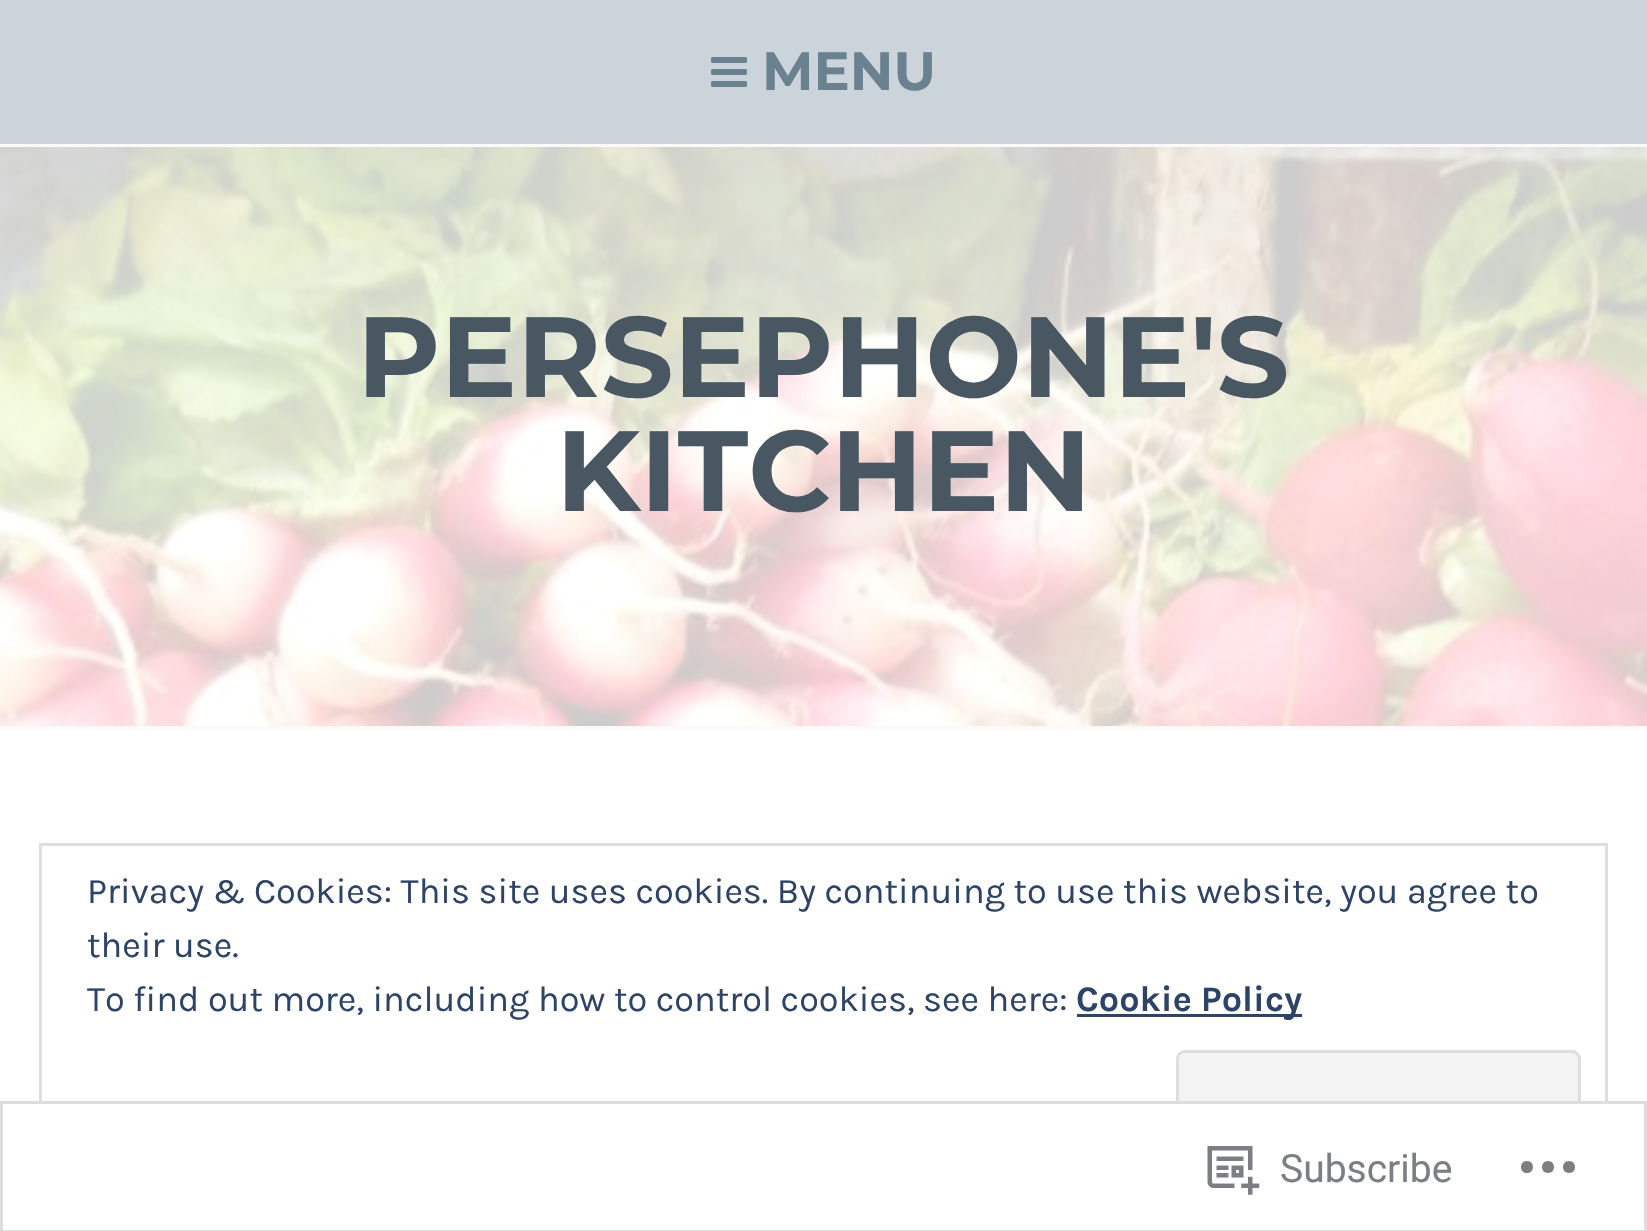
void draw(SkCanvas* canvas) {
    SkPaint paint;
    paint.setAntiAlias(true);
    canvas->clear(0xFFFFFFFF);
    paint.setColor(0xFFFAFAFA);
    canvas->drawRect(SkRect::MakeXYWH(0, 144, 1647, 3), paint);
    paint.setColor(0xFFCCD4DB);
    canvas->drawRect(SkRect::MakeXYWH(0, 0, 1647, 144), paint);
    canvas->drawImageRect(SkImages::DeferredFromEncodedData(SkData::MakeFromFileName("img1.png")), SkRect::MakeXYWH(711, 57, 36, 30), SkSamplingOptions());
    SkFont font1(fontMgr->matchFamilyStyle("Montserrat", SkFontStyle::Bold()), 54);
    font1.setSubpixel(true);
    paint.setColor(0xFF6A818F);
    canvas->drawString("MENU", 762, 90, font1, paint);
    canvas->drawImageRect(SkImages::DeferredFromEncodedData(SkData::MakeFromFileName("img2.png")), SkRect::MakeXYWH(0, 147, 1647, 579), SkSamplingOptions());
    SkFont font2(fontMgr->matchFamilyStyle("Montserrat", SkFontStyle::Bold()), 114);
    font2.setSubpixel(true);
    paint.setColor(0xFF495762);
    canvas->drawString("PERSEPHONE'S", 357, 397, font2, paint);
    canvas->drawString("KITCHEN", 556, 511, font2, paint);
    paint.setColor(0xFFFAFAFA);
    canvas->drawRect(SkRect::MakeXYWH(0, 726, 1647, 3), paint);
    paint.setStyle(SkPaint::kStroke_Style);
    paint.setStrokeWidth(3);
    paint.setColor(0xFFDEDEDE);
    canvas->drawRect(SkRect::MakeXYWH(40.5f, 844.5f, 1566, 348), paint);
    SkFont font3(fontMgr->matchFamilyStyle("Karla", SkFontStyle::Normal()), 36);
    font3.setSubpixel(true);
    paint.setStyle(SkPaint::kFill_Style);
    paint.setColor(0xFF2E4467);
    canvas->drawString("Privacy & Cookies: This site uses cookies. By continuing to use this website, you agree to", 87, 903, font3, paint);
    canvas->drawString("their use.", 87, 957, font3, paint);
    canvas->drawString("To find out more, including how to control cookies, see here:", 87, 1011, font3, paint);
    canvas->drawRect(SkRect::MakeXYWH(1077, 1014, 225, 3), paint);
    SkFont font4(fontMgr->matchFamilyStyle("Karla", SkFontStyle::Bold()), 36);
    font4.setSubpixel(true);
    canvas->drawString("Cookie Policy", 1076, 1011, font4, paint);
    paint.setColor(0xFFF3F3F3);
    canvas->drawRoundRect(SkRect::MakeXYWH(1177.5f, 1051.5f, 402, 114), 7.5f, 7.5f, paint);
    paint.setStyle(SkPaint::kStroke_Style);
    paint.setColor(0xFFDEDEDE);
    canvas->drawRoundRect(SkRect::MakeXYWH(1177.5f, 1051.5f, 402, 114), 7.5f, 7.5f, paint);
    paint.setStyle(SkPaint::kFill_Style);
    paint.setColor(0xFAFFFFFF);
    canvas->drawRect(SkRect::MakeXYWH(39, 1101, 1569, 93), paint);
    paint.setStyle(SkPaint::kStroke_Style);
    paint.setColor(0xFADCDCDE);
    canvas->drawRect(SkRect::MakeXYWH(1.5f, 1102.5f, 1644, 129), paint);
    canvas->drawImageRect(SkImages::DeferredFromEncodedData(SkData::MakeFromFileName("img3.png")), SkRect::MakeXYWH(1207, 1146, 53, 49), SkSamplingOptions());
    SkFont font5(fontMgr->matchFamilyStyle("Roboto", SkFontStyle::Normal()), 39);
    font5.setSubpixel(true);
    paint.setStyle(SkPaint::kFill_Style);
    paint.setColor(0xFF7B7F84);
    canvas->drawString("Subscribe", 1280, 1182, font5, paint);
    canvas->drawPath(SkPathBuilder().moveTo(1533, 1167).cubicTo(1533, 1175, 1521, 1175, 1521, 1167).cubicTo(1521, 1159, 1533, 1159, 1533, 1167).close().moveTo(1569, 1161).cubicTo(1561, 1161, 1561, 1173, 1569, 1173).cubicTo(1577, 1173, 1577, 1161, 1569, 1161).close().moveTo(1548, 1161).cubicTo(1540, 1161, 1540, 1173, 1548, 1173).cubicTo(1556, 1173, 1556, 1161, 1548, 1161).close().detach(), paint);
}
